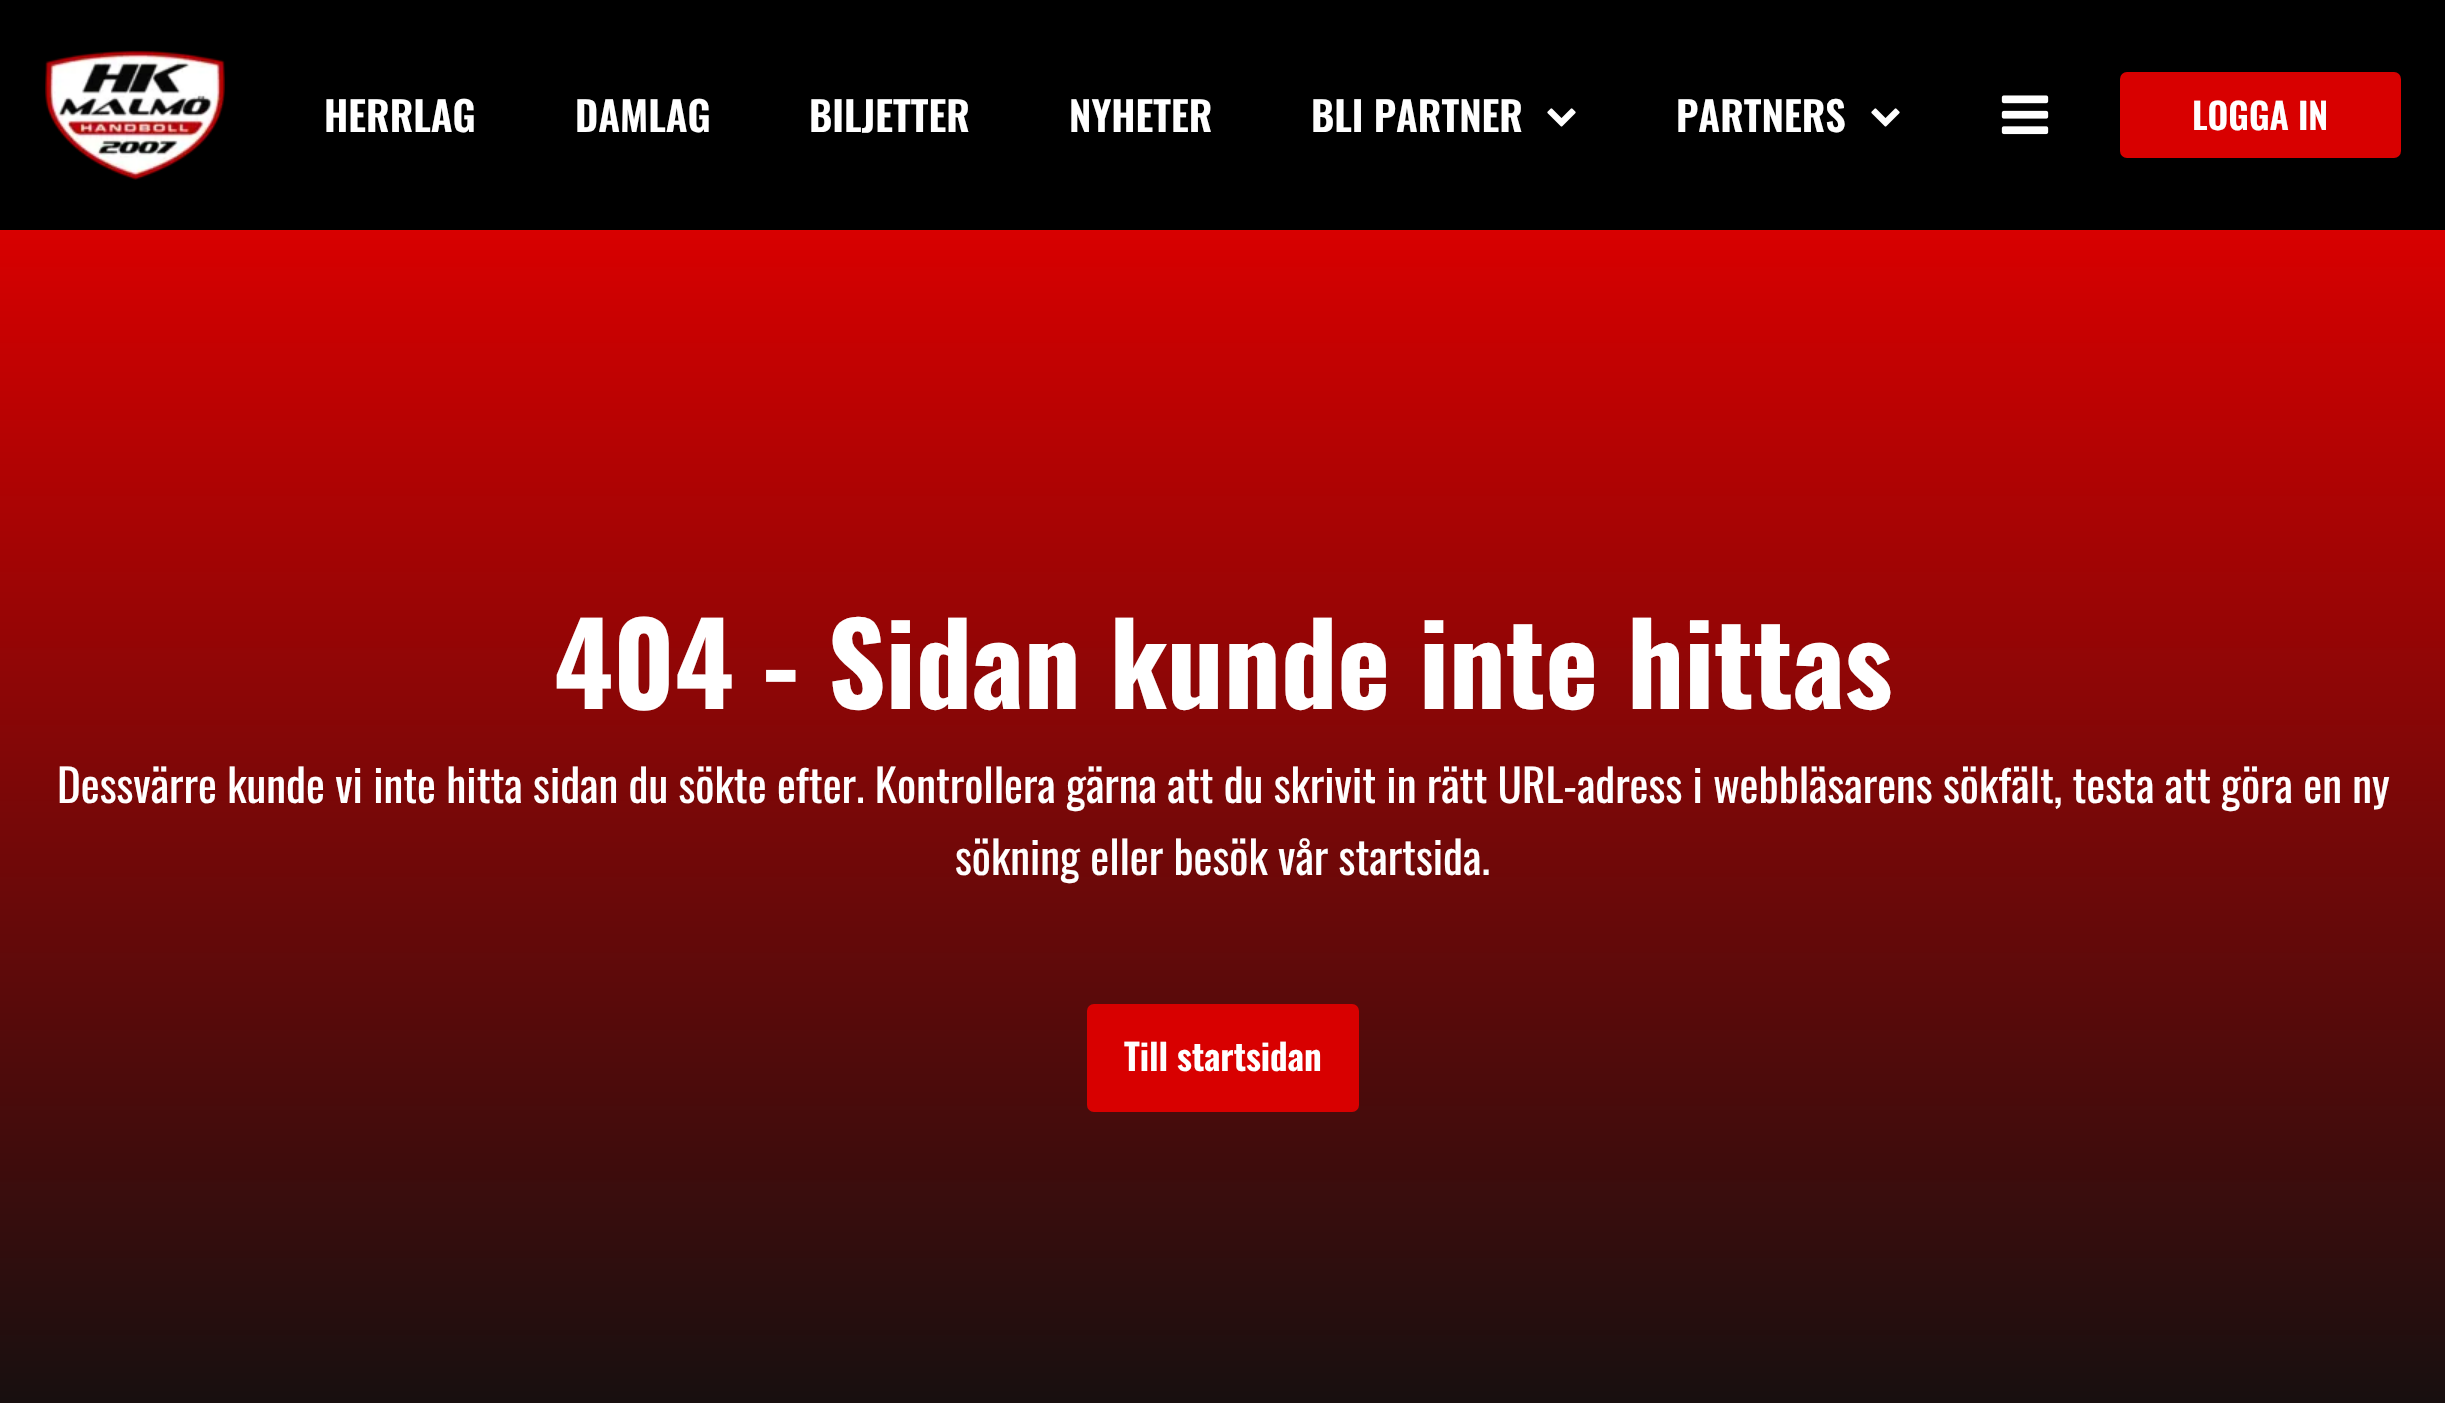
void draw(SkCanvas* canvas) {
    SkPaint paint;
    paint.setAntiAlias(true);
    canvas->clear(0xFF000000);
    canvas->drawImageRect(SkImages::DeferredFromEncodedData(SkData::MakeFromFileName("img1.png")), SkRect::MakeXYWH(45, 50, 180, 130), SkSamplingOptions());
    SkFont font1(fontMgr->matchFamilyStyle("Oswald", SkFontStyle(600, SkFontStyle::kNormal_Width, SkFontStyle::kUpright_Slant)), 40.5f);
    font1.setSubpixel(true);
    paint.setColor(0xFFFFFFFF);
    canvas->drawString("HERRLAG", 324, 132, font1, paint);
    canvas->drawString("DAMLAG", 575, 132, font1, paint);
    canvas->drawString("BILJETTER", 809, 132, font1, paint);
    canvas->drawString("NYHETER", 1069, 132, font1, paint);
    canvas->drawString("BLI PARTNER", 1311, 132, font1, paint);
    canvas->drawImageRect(SkImages::DeferredFromEncodedData(SkData::MakeFromFileName("img2.png")), SkRect::MakeXYWH(1547, 108, 29, 19), SkSamplingOptions());
    canvas->drawString("PARTNERS", 1676, 132, font1, paint);
    canvas->drawImageRect(SkImages::DeferredFromEncodedData(SkData::MakeFromFileName("img2.png")), SkRect::MakeXYWH(1871, 108, 29, 19), SkSamplingOptions());
    canvas->drawImageRect(SkImages::DeferredFromEncodedData(SkData::MakeFromFileName("img3.png")), SkRect::MakeXYWH(2001, 95, 48, 40), SkSamplingOptions());
    paint.setColor(0xFFD80000);
    canvas->drawRoundRect(SkRect::MakeXYWH(2120, 72, 281, 86), 7, 7, paint);
    SkFont font2(fontMgr->matchFamilyStyle("Oswald", SkFontStyle(600, SkFontStyle::kNormal_Width, SkFontStyle::kUpright_Slant)), 36);
    font2.setSubpixel(true);
    paint.setColor(0xFFFFFFFF);
    canvas->drawString("LOGGA IN", 2192, 130, font2, paint);
    {
        const SkColor colors[] = {0xFFD80000, 0xFF101010};
        const float stops[] = {0, 1};
        const SkPoint ends[] = {{1223, 229}, {1223, 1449}};
        paint.setShader(SkGradientShader::MakeLinear(ends, colors, stops, 2, SkTileMode::kClamp));
        paint.setAlpha(255);
    }
    canvas->drawRect(SkRect::MakeXYWH(0, 230, 2445, 1173), paint);
    SkFont font3(fontMgr->matchFamilyStyle("Oswald", SkFontStyle::Bold()), 112.5f);
    font3.setSubpixel(true);
    paint.setShader(nullptr);
    paint.setColor(0xFFFFFFFF);
    canvas->drawString("404 - Sidan kunde inte hittas", 554, 709, font3, paint);
    SkFont font4(fontMgr->matchFamilyStyle("Oswald", SkFontStyle::Normal()), 45);
    font4.setSubpixel(true);
    canvas->drawString("Dessvärre kunde vi inte hitta sidan du sökte efter. Kontrollera gärna att du skrivit in rätt URL-adress i webbläsarens sökfält, testa att göra en ny", 57, 803, font4, paint);
    canvas->drawString("sökning eller besök vår startsida.", 955, 875, font4, paint);
    paint.setColor(0xFFD80000);
    canvas->drawRoundRect(SkRect::MakeXYWH(1088, 1005, 270, 106), 6, 6, paint);
    paint.setStyle(SkPaint::kStroke_Style);
    paint.setStrokeWidth(2);
    canvas->drawRoundRect(SkRect::MakeXYWH(1088, 1005, 270, 106), 6, 6, paint);
    paint.setStyle(SkPaint::kFill_Style);
    paint.setColor(0xFFFFFFFF);
    canvas->drawString("Till startsidan", 1124, 1071, font2, paint);
}
